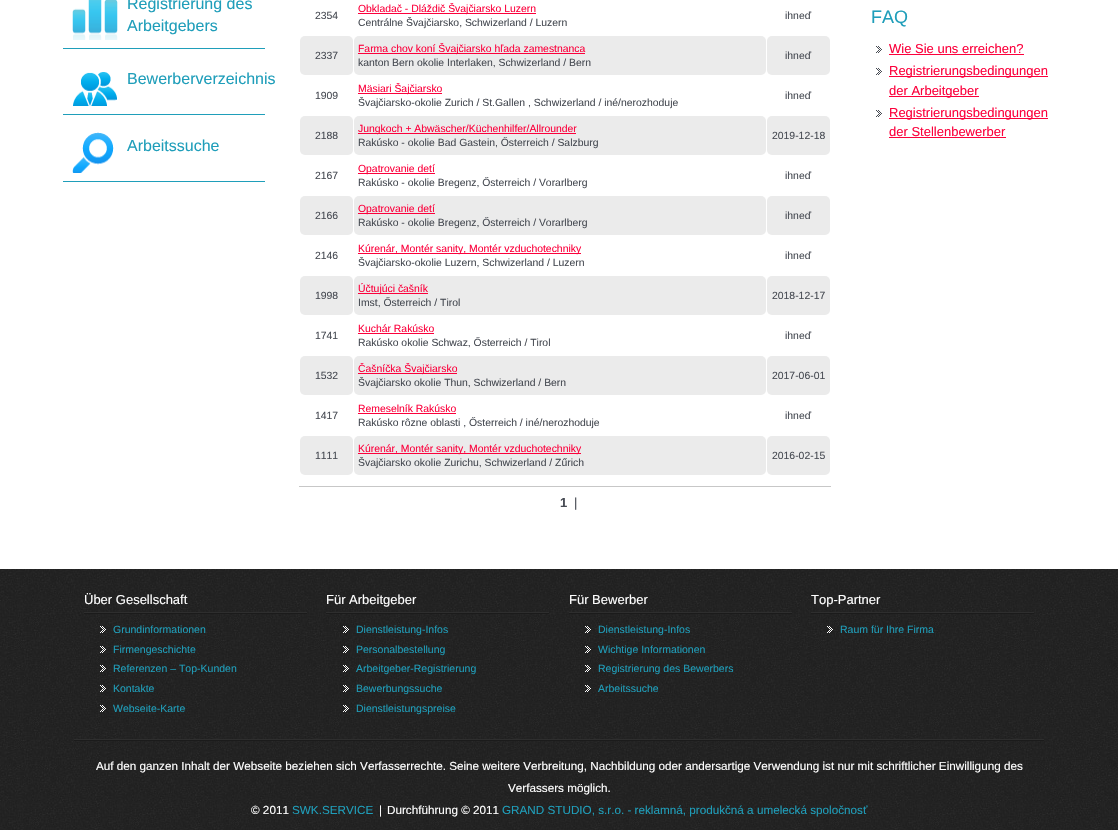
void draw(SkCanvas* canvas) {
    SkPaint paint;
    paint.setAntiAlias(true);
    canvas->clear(0xFFFFFFFF);
    paint.setColor(0xFF1F9EBA);
    canvas->drawRect(SkRect::MakeXYWH(63, 48, 202, 1), paint);
    canvas->drawImageRect(SkImages::DeferredFromEncodedData(SkData::MakeFromFileName("img1.png")), SkRect::MakeXYWH(72, 0, 46, 40), SkSamplingOptions());
    SkFont font1(fontMgr->matchFamilyStyle("Liberation Sans", SkFontStyle::Normal()), 16);
    font1.setSubpixel(true);
    canvas->drawString("Registrierung des", 127, 9, font1, paint);
    canvas->drawString("Arbeitgebers", 127, 31, font1, paint);
    canvas->drawRect(SkRect::MakeXYWH(63, 114, 202, 1), paint);
    canvas->drawImageRect(SkImages::DeferredFromEncodedData(SkData::MakeFromFileName("img2.png")), SkRect::MakeXYWH(73, 72, 44, 34), SkSamplingOptions());
    canvas->drawString("Bewerberverzeichnis", 127, 84, font1, paint);
    canvas->drawRect(SkRect::MakeXYWH(63, 181, 202, 1), paint);
    canvas->drawImageRect(SkImages::DeferredFromEncodedData(SkData::MakeFromFileName("img3.png")), SkRect::MakeXYWH(72, 132, 42, 41), SkSamplingOptions());
    canvas->drawString("Arbeitssuche", 127, 151, font1, paint);
    SkFont font2(fontMgr->matchFamilyStyle("Liberation Sans", SkFontStyle::Normal()), 10.4f);
    font2.setSubpixel(true);
    paint.setColor(0xFF474B53);
    canvas->drawString("2354", 315, 19, font2, paint);
    paint.setColor(0xFFFC013C);
    canvas->drawRect(SkRect::MakeXYWH(358, 13, 178, 1), paint);
    canvas->drawString("Obkladač - Dláždič Švajčiarsko Luzern", 358, 12, font2, paint);
    paint.setColor(0xFF474B53);
    canvas->drawString("Centrálne Švajčiarsko, Schwizerland / Luzern", 358, 26, font2, paint);
    canvas->drawString("ihneď", 785, 19, font2, paint);
    paint.setColor(0xFFEBEBEB);
    canvas->drawRoundRect(SkRect::MakeXYWH(300, 36, 53, 39), 5, 5, paint);
    paint.setColor(0xFF474B53);
    canvas->drawString("2337", 315, 59, font2, paint);
    paint.setColor(0xFFEBEBEB);
    canvas->drawRoundRect(SkRect::MakeXYWH(354, 36, 412, 39), 5, 5, paint);
    paint.setColor(0xFFFC013C);
    canvas->drawRect(SkRect::MakeXYWH(358, 53, 227, 1), paint);
    canvas->drawString("Farma chov koní Švajčiarsko hľada zamestnanca", 358, 52, font2, paint);
    paint.setColor(0xFF474B53);
    canvas->drawString("kanton Bern okolie Interlaken, Schwizerland / Bern", 358, 66, font2, paint);
    paint.setColor(0xFFEBEBEB);
    canvas->drawRoundRect(SkRect::MakeXYWH(767, 36, 63, 39), 5, 5, paint);
    paint.setColor(0xFF474B53);
    canvas->drawString("ihneď", 785, 59, font2, paint);
    canvas->drawString("1909", 315, 99, font2, paint);
    paint.setColor(0xFFFC013C);
    canvas->drawRect(SkRect::MakeXYWH(358, 93, 84, 1), paint);
    canvas->drawString("Mäsiari Šajčiarsko", 358, 92, font2, paint);
    paint.setColor(0xFF474B53);
    canvas->drawString("Švajčiarsko-okolie Zurich / St.Gallen , Schwizerland / iné/nerozhoduje", 358, 106, font2, paint);
    canvas->drawString("ihneď", 785, 99, font2, paint);
    paint.setColor(0xFFEBEBEB);
    canvas->drawRoundRect(SkRect::MakeXYWH(300, 116, 53, 39), 5, 5, paint);
    paint.setColor(0xFF474B53);
    canvas->drawString("2188", 315, 139, font2, paint);
    paint.setColor(0xFFEBEBEB);
    canvas->drawRoundRect(SkRect::MakeXYWH(354, 116, 412, 39), 5, 5, paint);
    paint.setColor(0xFFFC013C);
    canvas->drawRect(SkRect::MakeXYWH(358, 133, 218, 1), paint);
    canvas->drawString("Jungkoch + Abwäscher/Küchenhilfer/Allrounder", 358, 132, font2, paint);
    paint.setColor(0xFF474B53);
    canvas->drawString("Rakúsko - okolie Bad Gastein, Ősterreich / Salzburg", 358, 146, font2, paint);
    paint.setColor(0xFFEBEBEB);
    canvas->drawRoundRect(SkRect::MakeXYWH(767, 116, 63, 39), 5, 5, paint);
    paint.setColor(0xFF474B53);
    canvas->drawString("2019-12-18", 772, 139, font2, paint);
    canvas->drawString("2167", 315, 179, font2, paint);
    paint.setColor(0xFFFC013C);
    canvas->drawRect(SkRect::MakeXYWH(358, 173, 77, 1), paint);
    canvas->drawString("Opatrovanie detí", 358, 172, font2, paint);
    paint.setColor(0xFF474B53);
    canvas->drawString("Rakúsko - okolie Bregenz, Ősterreich / Vorarlberg", 358, 186, font2, paint);
    canvas->drawString("ihneď", 785, 179, font2, paint);
    paint.setColor(0xFFEBEBEB);
    canvas->drawRoundRect(SkRect::MakeXYWH(300, 196, 53, 39), 5, 5, paint);
    paint.setColor(0xFF474B53);
    canvas->drawString("2166", 315, 219, font2, paint);
    paint.setColor(0xFFEBEBEB);
    canvas->drawRoundRect(SkRect::MakeXYWH(354, 196, 412, 39), 5, 5, paint);
    paint.setColor(0xFFFC013C);
    canvas->drawRect(SkRect::MakeXYWH(358, 213, 77, 1), paint);
    canvas->drawString("Opatrovanie detí", 358, 212, font2, paint);
    paint.setColor(0xFF474B53);
    canvas->drawString("Rakúsko - okolie Bregenz, Ősterreich / Vorarlberg", 358, 226, font2, paint);
    paint.setColor(0xFFEBEBEB);
    canvas->drawRoundRect(SkRect::MakeXYWH(767, 196, 63, 39), 5, 5, paint);
    paint.setColor(0xFF474B53);
    canvas->drawString("ihneď", 785, 219, font2, paint);
    canvas->drawString("2146", 315, 259, font2, paint);
    paint.setColor(0xFFFC013C);
    canvas->drawRect(SkRect::MakeXYWH(358, 253, 223, 1), paint);
    canvas->drawString("Kúrenár, Montér sanity, Montér vzduchotechniky", 358, 252, font2, paint);
    paint.setColor(0xFF474B53);
    canvas->drawString("Švajčiarsko-okolie Luzern, Schwizerland / Luzern", 358, 266, font2, paint);
    canvas->drawString("ihneď", 785, 259, font2, paint);
    paint.setColor(0xFFEBEBEB);
    canvas->drawRoundRect(SkRect::MakeXYWH(300, 276, 53, 39), 5, 5, paint);
    paint.setColor(0xFF474B53);
    canvas->drawString("1998", 315, 299, font2, paint);
    paint.setColor(0xFFEBEBEB);
    canvas->drawRoundRect(SkRect::MakeXYWH(354, 276, 412, 39), 5, 5, paint);
    paint.setColor(0xFFFC013C);
    canvas->drawRect(SkRect::MakeXYWH(358, 293, 70, 1), paint);
    canvas->drawString("Účtujúci čašník", 358, 292, font2, paint);
    paint.setColor(0xFF474B53);
    canvas->drawString("Imst, Ősterreich / Tirol", 358, 306, font2, paint);
    paint.setColor(0xFFEBEBEB);
    canvas->drawRoundRect(SkRect::MakeXYWH(767, 276, 63, 39), 5, 5, paint);
    paint.setColor(0xFF474B53);
    canvas->drawString("2018-12-17", 772, 299, font2, paint);
    canvas->drawString("1741", 315, 339, font2, paint);
    paint.setColor(0xFFFC013C);
    canvas->drawString("Kuchár Rakúsko", 358, 332, font2, paint);
    canvas->drawRect(SkRect::MakeXYWH(358, 333, 76, 1), paint);
    paint.setColor(0xFF474B53);
    canvas->drawString("Rakúsko okolie Schwaz, Ősterreich / Tirol", 358, 346, font2, paint);
    canvas->drawString("ihneď", 785, 339, font2, paint);
    paint.setColor(0xFFEBEBEB);
    canvas->drawRoundRect(SkRect::MakeXYWH(300, 356, 53, 39), 5, 5, paint);
    paint.setColor(0xFF474B53);
    canvas->drawString("1532", 315, 379, font2, paint);
    paint.setColor(0xFFEBEBEB);
    canvas->drawRoundRect(SkRect::MakeXYWH(354, 356, 412, 39), 5, 5, paint);
    paint.setColor(0xFFFC013C);
    canvas->drawRect(SkRect::MakeXYWH(358, 373, 99, 1), paint);
    canvas->drawString("Čašníčka Švajčiarsko", 358, 372, font2, paint);
    paint.setColor(0xFF474B53);
    canvas->drawString("Švajčiarsko okolie Thun, Schwizerland / Bern", 358, 386, font2, paint);
    paint.setColor(0xFFEBEBEB);
    canvas->drawRoundRect(SkRect::MakeXYWH(767, 356, 63, 39), 5, 5, paint);
    paint.setColor(0xFF474B53);
    canvas->drawString("2017-06-01", 772, 379, font2, paint);
    canvas->drawString("1417", 315, 419, font2, paint);
    paint.setColor(0xFFFC013C);
    canvas->drawString("Remeselník Rakúsko", 358, 412, font2, paint);
    canvas->drawRect(SkRect::MakeXYWH(358, 413, 98, 1), paint);
    paint.setColor(0xFF474B53);
    canvas->drawString("Rakúsko rôzne oblasti , Ősterreich / iné/nerozhoduje", 358, 426, font2, paint);
    canvas->drawString("ihneď", 785, 419, font2, paint);
    paint.setColor(0xFFEBEBEB);
    canvas->drawRoundRect(SkRect::MakeXYWH(300, 436, 53, 39), 5, 5, paint);
    paint.setColor(0xFF474B53);
    canvas->drawString("1111", 315, 459, font2, paint);
    paint.setColor(0xFFEBEBEB);
    canvas->drawRoundRect(SkRect::MakeXYWH(354, 436, 412, 39), 5, 5, paint);
    paint.setColor(0xFFFC013C);
    canvas->drawRect(SkRect::MakeXYWH(358, 453, 223, 1), paint);
    canvas->drawString("Kúrenár, Montér sanity, Montér vzduchotechniky", 358, 452, font2, paint);
    paint.setColor(0xFF474B53);
    canvas->drawString("Švajčiarsko okolie Zurichu, Schwizerland / Zűrich", 358, 466, font2, paint);
    paint.setColor(0xFFEBEBEB);
    canvas->drawRoundRect(SkRect::MakeXYWH(767, 436, 63, 39), 5, 5, paint);
    paint.setColor(0xFF474B53);
    canvas->drawString("2016-02-15", 772, 459, font2, paint);
    paint.setColor(0xFFC7C7C7);
    canvas->drawRect(SkRect::MakeXYWH(299, 486, 532, 1), paint);
    SkFont font3(fontMgr->matchFamilyStyle("Liberation Sans", SkFontStyle::Bold()), 13);
    font3.setSubpixel(true);
    paint.setColor(0xFF474B53);
    canvas->drawString("1", 560, 507, font3, paint);
    SkFont font4(fontMgr->matchFamilyStyle("Liberation Sans", SkFontStyle::Normal()), 13);
    font4.setSubpixel(true);
    canvas->drawString("|", 574, 507, font4, paint);
    SkFont font5(fontMgr->matchFamilyStyle("Liberation Sans", SkFontStyle::Normal()), 18);
    font5.setSubpixel(true);
    paint.setColor(0xFF1F9EBA);
    canvas->drawString("FAQ", 871, 23, font5, paint);
    canvas->drawImageRect(SkImages::DeferredFromEncodedData(SkData::MakeFromFileName("img4.png")), SkRect::MakeXYWH(876, 46, 6, 7), SkSamplingOptions());
    paint.setColor(0xFFFC013C);
    canvas->drawString("Wie Sie uns erreichen?", 889, 53, font4, paint);
    canvas->drawRect(SkRect::MakeXYWH(889, 54, 135, 1), paint);
    canvas->drawImageRect(SkImages::DeferredFromEncodedData(SkData::MakeFromFileName("img4.png")), SkRect::MakeXYWH(876, 68, 6, 7), SkSamplingOptions());
    canvas->drawRect(SkRect::MakeXYWH(889, 76, 159, 1), paint);
    canvas->drawString("Registrierungsbedingungen", 889, 75, font4, paint);
    canvas->drawRect(SkRect::MakeXYWH(889, 96, 90, 1), paint);
    canvas->drawString("der Arbeitgeber", 889, 95, font4, paint);
    canvas->drawImageRect(SkImages::DeferredFromEncodedData(SkData::MakeFromFileName("img4.png")), SkRect::MakeXYWH(876, 110, 6, 7), SkSamplingOptions());
    canvas->drawRect(SkRect::MakeXYWH(889, 118, 159, 1), paint);
    canvas->drawString("Registrierungsbedingungen", 889, 117, font4, paint);
    canvas->drawString("der Stellenbewerber", 889, 136, font4, paint);
    canvas->drawRect(SkRect::MakeXYWH(889, 137, 117, 1), paint);
    canvas->drawImageRect(SkImages::DeferredFromEncodedData(SkData::MakeFromFileName("img5.png")), SkRect::MakeXYWH(0, 569, 1118, 261), SkSamplingOptions());
    canvas->drawImageRect(SkImages::DeferredFromEncodedData(SkData::MakeFromFileName("img6.png")), SkRect::MakeXYWH(84, 612, 223, 2), SkSamplingOptions());
    paint.setColor(0xFFFFFFFF);
    canvas->drawString("Über Gesellschaft", 84, 604, font4, paint);
    canvas->drawImageRect(SkImages::DeferredFromEncodedData(SkData::MakeFromFileName("img7.png")), SkRect::MakeXYWH(100, 626, 6, 7), SkSamplingOptions());
    SkFont font6(fontMgr->matchFamilyStyle("Liberation Sans", SkFontStyle::Normal()), 10.5f);
    font6.setSubpixel(true);
    paint.setColor(0xFF1F9EBA);
    canvas->drawString("Grundinformationen", 113, 633, font6, paint);
    canvas->drawImageRect(SkImages::DeferredFromEncodedData(SkData::MakeFromFileName("img8.png")), SkRect::MakeXYWH(100, 646, 6, 7), SkSamplingOptions());
    canvas->drawString("Firmengeschichte", 113, 653, font6, paint);
    canvas->drawImageRect(SkImages::DeferredFromEncodedData(SkData::MakeFromFileName("img9.png")), SkRect::MakeXYWH(100, 665, 6, 7), SkSamplingOptions());
    canvas->drawString("Referenzen – Top-Kunden", 113, 672, font6, paint);
    canvas->drawImageRect(SkImages::DeferredFromEncodedData(SkData::MakeFromFileName("img10.png")), SkRect::MakeXYWH(100, 685, 6, 7), SkSamplingOptions());
    canvas->drawString("Kontakte", 113, 692, font6, paint);
    canvas->drawImageRect(SkImages::DeferredFromEncodedData(SkData::MakeFromFileName("img11.png")), SkRect::MakeXYWH(100, 705, 6, 7), SkSamplingOptions());
    canvas->drawString("Webseite-Karte", 113, 712, font6, paint);
    canvas->drawImageRect(SkImages::DeferredFromEncodedData(SkData::MakeFromFileName("img6.png")), SkRect::MakeXYWH(326, 612, 223, 2), SkSamplingOptions());
    paint.setColor(0xFFFFFFFF);
    canvas->drawString("Für Arbeitgeber", 326, 604, font4, paint);
    canvas->drawImageRect(SkImages::DeferredFromEncodedData(SkData::MakeFromFileName("img12.png")), SkRect::MakeXYWH(343, 626, 6, 7), SkSamplingOptions());
    paint.setColor(0xFF1F9EBA);
    canvas->drawString("Dienstleistung-Infos", 356, 633, font6, paint);
    canvas->drawImageRect(SkImages::DeferredFromEncodedData(SkData::MakeFromFileName("img13.png")), SkRect::MakeXYWH(343, 646, 6, 7), SkSamplingOptions());
    canvas->drawString("Personalbestellung", 356, 653, font6, paint);
    canvas->drawImageRect(SkImages::DeferredFromEncodedData(SkData::MakeFromFileName("img14.png")), SkRect::MakeXYWH(343, 665, 6, 7), SkSamplingOptions());
    canvas->drawString("Arbeitgeber-Registrierung", 356, 672, font6, paint);
    canvas->drawImageRect(SkImages::DeferredFromEncodedData(SkData::MakeFromFileName("img15.png")), SkRect::MakeXYWH(343, 685, 6, 7), SkSamplingOptions());
    canvas->drawString("Bewerbungssuche", 356, 692, font6, paint);
    canvas->drawImageRect(SkImages::DeferredFromEncodedData(SkData::MakeFromFileName("img16.png")), SkRect::MakeXYWH(343, 705, 6, 7), SkSamplingOptions());
    canvas->drawString("Dienstleistungspreise", 356, 712, font6, paint);
    canvas->drawImageRect(SkImages::DeferredFromEncodedData(SkData::MakeFromFileName("img6.png")), SkRect::MakeXYWH(569, 612, 223, 2), SkSamplingOptions());
    paint.setColor(0xFFFFFFFF);
    canvas->drawString("Für Bewerber", 569, 604, font4, paint);
    canvas->drawImageRect(SkImages::DeferredFromEncodedData(SkData::MakeFromFileName("img17.png")), SkRect::MakeXYWH(585, 626, 6, 7), SkSamplingOptions());
    paint.setColor(0xFF1F9EBA);
    canvas->drawString("Dienstleistung-Infos", 598, 633, font6, paint);
    canvas->drawImageRect(SkImages::DeferredFromEncodedData(SkData::MakeFromFileName("img18.png")), SkRect::MakeXYWH(585, 646, 6, 7), SkSamplingOptions());
    canvas->drawString("Wichtige Informationen", 598, 653, font6, paint);
    canvas->drawImageRect(SkImages::DeferredFromEncodedData(SkData::MakeFromFileName("img19.png")), SkRect::MakeXYWH(585, 665, 6, 7), SkSamplingOptions());
    canvas->drawString("Registrierung des Bewerbers", 598, 672, font6, paint);
    canvas->drawImageRect(SkImages::DeferredFromEncodedData(SkData::MakeFromFileName("img20.png")), SkRect::MakeXYWH(585, 685, 6, 7), SkSamplingOptions());
    canvas->drawString("Arbeitssuche", 598, 692, font6, paint);
    canvas->drawImageRect(SkImages::DeferredFromEncodedData(SkData::MakeFromFileName("img6.png")), SkRect::MakeXYWH(811, 612, 223, 2), SkSamplingOptions());
    paint.setColor(0xFFFFFFFF);
    canvas->drawString("Top-Partner", 811, 604, font4, paint);
    canvas->drawImageRect(SkImages::DeferredFromEncodedData(SkData::MakeFromFileName("img21.png")), SkRect::MakeXYWH(827, 626, 6, 7), SkSamplingOptions());
    paint.setColor(0xFF1F9EBA);
    canvas->drawString("Raum für Ihre Firma", 840, 633, font6, paint);
    canvas->drawImageRect(SkImages::DeferredFromEncodedData(SkData::MakeFromFileName("img22.png")), SkRect::MakeXYWH(74, 739, 970, 2), SkSamplingOptions());
    SkFont font7(fontMgr->matchFamilyStyle("Liberation Sans", SkFontStyle::Normal()), 11.7f);
    font7.setSubpixel(true);
    paint.setColor(0xFFFFFFFF);
    canvas->drawString("Auf den ganzen Inhalt der Webseite beziehen sich Verfasserrechte. Seine weitere Verbreitung, Nachbildung oder andersartige Verwendung ist nur mit schriftlicher Einwilligung des", 96, 770, font7, paint);
    canvas->drawString("Verfassers möglich.", 508, 792, font7, paint);
    canvas->drawString("© 2011", 251, 814, font7, paint);
    paint.setColor(0xFF1F9EBA);
    canvas->drawString("SWK.SERVICE", 292, 814, font7, paint);
    paint.setColor(0xFFFFFFFF);
    canvas->drawString("|", 379, 814, font7, paint);
    canvas->drawString("Durchführung © 2011", 387, 814, font7, paint);
    paint.setColor(0xFF1F9EBA);
    canvas->drawString("GRAND STUDIO, s.r.o. - reklamná, produkčná a umelecká spoločnosť", 502, 814, font7, paint);
}
